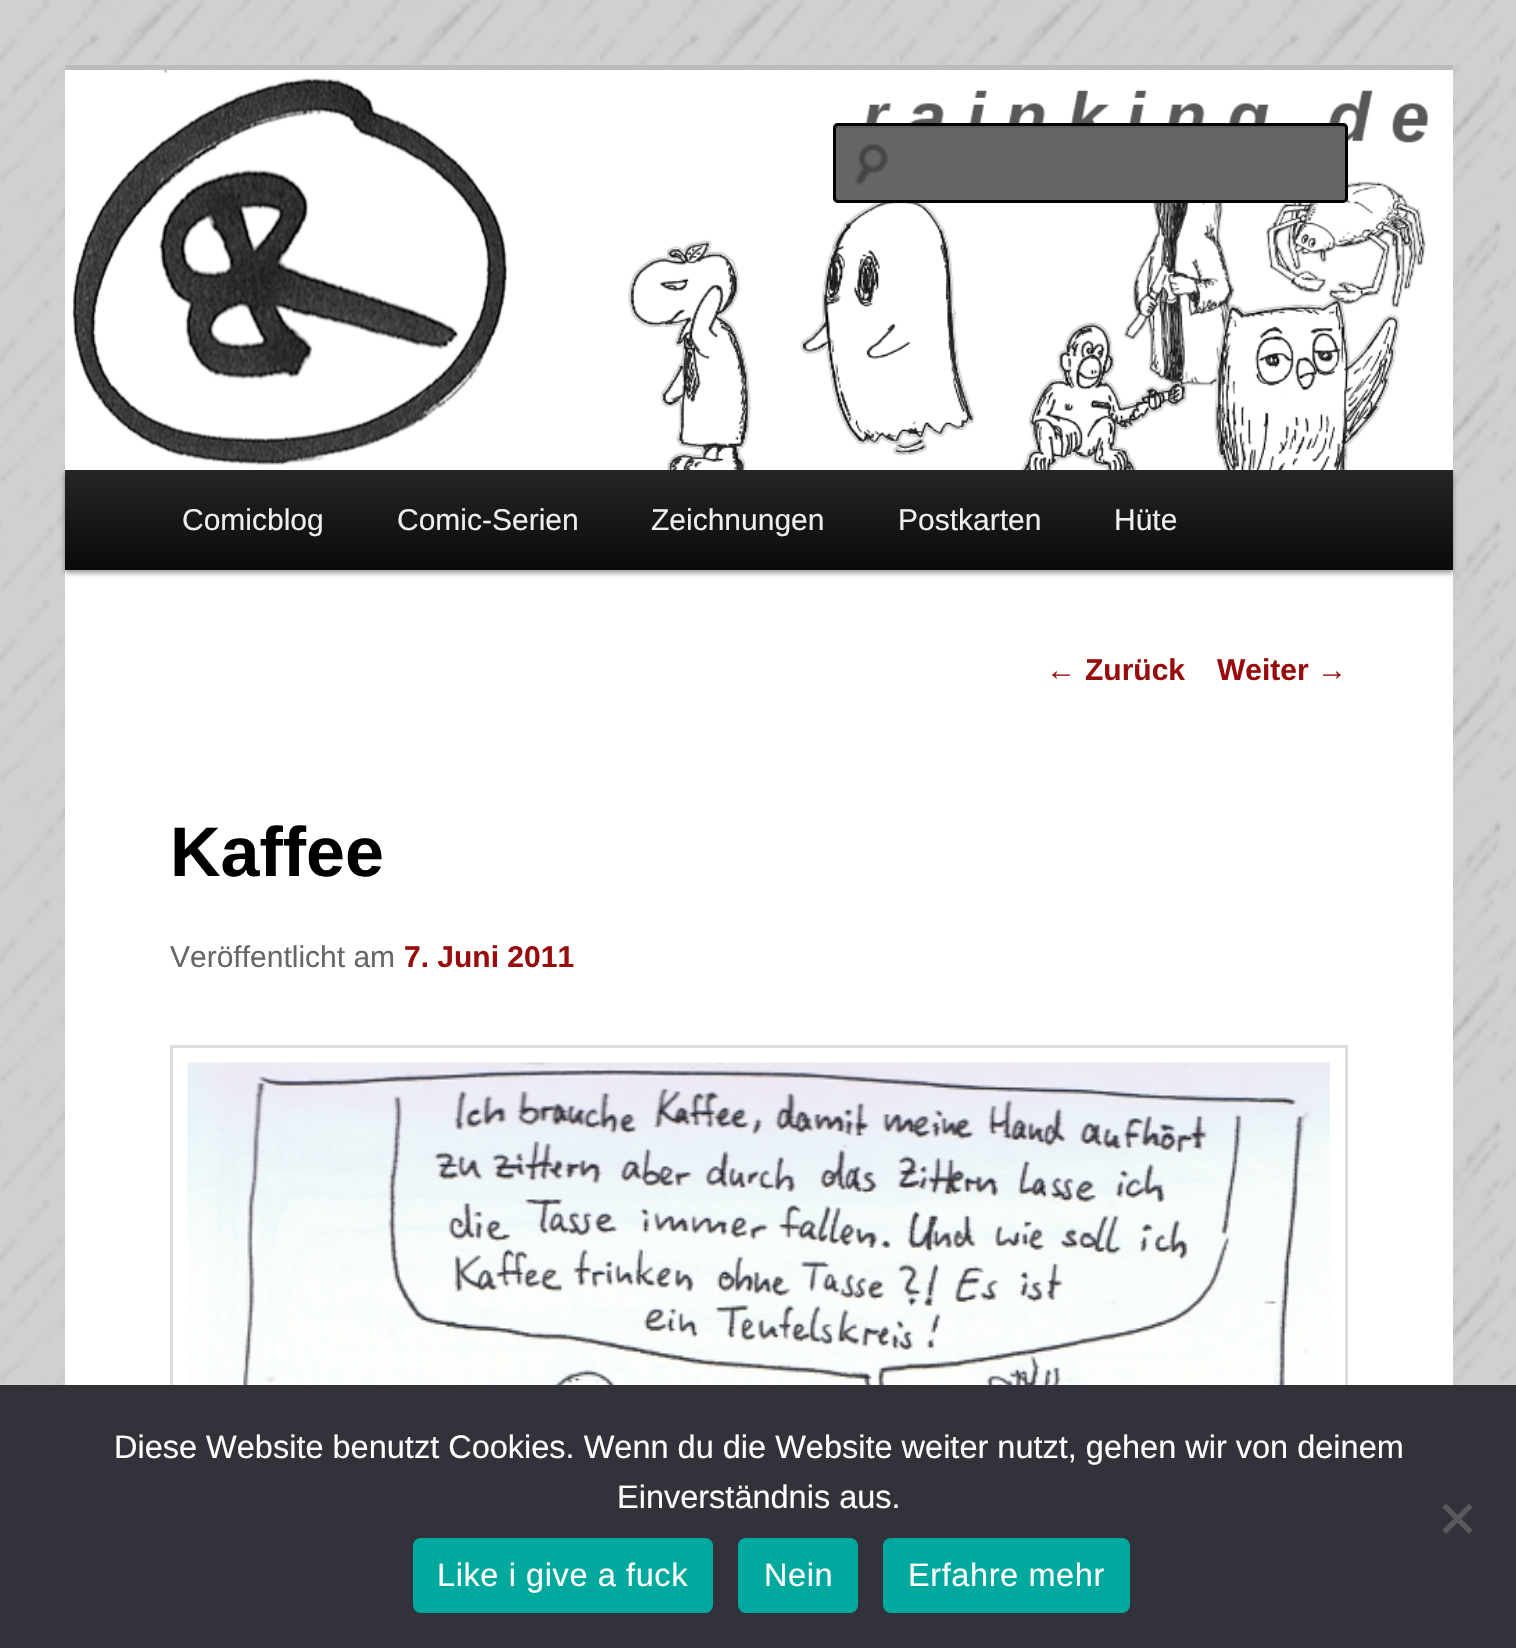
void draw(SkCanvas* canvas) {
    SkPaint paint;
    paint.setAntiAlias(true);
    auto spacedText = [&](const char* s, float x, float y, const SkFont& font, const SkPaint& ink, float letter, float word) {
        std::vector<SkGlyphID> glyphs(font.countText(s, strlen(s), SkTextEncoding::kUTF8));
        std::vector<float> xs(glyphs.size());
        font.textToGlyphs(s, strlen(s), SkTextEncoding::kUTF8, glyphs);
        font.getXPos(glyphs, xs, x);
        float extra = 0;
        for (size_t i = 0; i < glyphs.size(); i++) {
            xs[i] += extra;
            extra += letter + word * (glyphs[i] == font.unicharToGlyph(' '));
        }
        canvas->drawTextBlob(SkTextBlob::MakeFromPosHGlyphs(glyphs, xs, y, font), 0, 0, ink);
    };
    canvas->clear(0xFFFFFFFF);
    canvas->drawImageRect(SkImages::DeferredFromEncodedData(SkData::MakeFromFileName("img1.png")), SkRect::MakeXYWH(0, 0, 1516, 1385), SkSamplingOptions());
    paint.setColor(0xFFFFFFFF);
    canvas->drawRect(SkRect::MakeXYWH(65, 70, 1388, 1315), paint);
    paint.setColor(0xFFBBBBBB);
    canvas->drawRect(SkRect::MakeXYWH(65, 65, 1388, 5), paint);
    paint.setColor(0x66000000);
    paint.setMaskFilter(SkMaskFilter::MakeBlur(kNormal_SkBlurStyle, 2.5f));
    canvas->drawRect(SkRect::MakeXYWH(65, 473, 1388, 100), paint);
    paint.setMaskFilter(nullptr);
    canvas->drawImageRect(SkImages::DeferredFromEncodedData(SkData::MakeFromFileName("img2.png")), SkRect::MakeXYWH(65, 70, 1387, 400), SkSamplingOptions());
    paint.setColor(0xFF666666);
    canvas->drawRoundRect(SkRect::MakeXYWH(833, 123, 515, 80), 5, 5, paint);
    canvas->drawImageRect(SkImages::DeferredFromEncodedData(SkData::MakeFromFileName("img3.png")), SkRect::MakeXYWH(855, 143, 33, 43), SkSamplingOptions());
    paint.setColor(0xFF5C5C5C);
    canvas->drawPath(SkPathBuilder().moveTo(838, 128).lineTo(1342, 128).cubicTo(1344, 128, 1345, 129, 1345, 130).cubicTo(1345, 128, 1345, 125, 1342, 125).lineTo(838, 125).lineTo(835, 126).lineTo(835, 130).cubicTo(835, 129, 836, 128, 838, 128).close().detach(), paint);
    paint.setStyle(SkPaint::kStroke_Style);
    paint.setStrokeWidth(3);
    paint.setColor(0xFF000000);
    canvas->drawRoundRect(SkRect::MakeXYWH(834.5f, 124.5f, 512, 77), 3.5f, 3.5f, paint);
    paint.setStyle(SkPaint::kFill_Style);
    {
        const SkColor colors[] = {0xFF252525, 0xFF0A0A0A};
        const float stops[] = {0, 1};
        const SkPoint ends[] = {{759, 470}, {759, 570}};
        paint.setShader(SkGradientShader::MakeLinear(ends, colors, stops, 2, SkTileMode::kClamp));
        paint.setAlpha(255);
    }
    canvas->drawRect(SkRect::MakeXYWH(65, 470, 1388, 100), paint);
    SkFont font1(fontMgr->matchFamilyStyle("Liberation Sans", SkFontStyle::Normal()), 30);
    font1.setSubpixel(true);
    paint.setShader(nullptr);
    paint.setColor(0xFFEEEEEE);
    canvas->drawString("Comicblog", 182, 530, font1, paint);
    canvas->drawString("Comic-Serien", 397, 530, font1, paint);
    canvas->drawString("Zeichnungen", 651, 530, font1, paint);
    canvas->drawString("Postkarten", 898, 530, font1, paint);
    canvas->drawString("Hüte", 1114, 530, font1, paint);
    paint.setColor(0xFF990C0C);
    canvas->drawString("←", 1046, 680, font1, paint);
    SkFont font2(fontMgr->matchFamilyStyle("Liberation Sans", SkFontStyle::Bold()), 30);
    font2.setSubpixel(true);
    canvas->drawString("Zurück", 1085, 680, font2, paint);
    canvas->drawString("Weiter", 1217, 680, font2, paint);
    canvas->drawString("→", 1317, 680, font1, paint);
    SkFont font3(fontMgr->matchFamilyStyle("Liberation Sans", SkFontStyle::Bold()), 70);
    font3.setSubpixel(true);
    paint.setColor(0xFF000000);
    canvas->drawString("Kaffee", 170, 876, font3, paint);
    paint.setColor(0xFF666666);
    canvas->drawString("Veröffentlicht am", 170, 967, font1, paint);
    paint.setColor(0xFF990C0C);
    canvas->drawString("7. Juni 2011", 404, 967, font2, paint);
    paint.setStyle(SkPaint::kStroke_Style);
    paint.setColor(0xFFDDDDDD);
    canvas->drawRect(SkRect::MakeXYWH(171.5f, 1046.5f, 1175, 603), paint);
    canvas->drawImageRect(SkImages::DeferredFromEncodedData(SkData::MakeFromFileName("img4.png")), SkRect::MakeXYWH(187, 1062, 1143, 323), SkSamplingOptions());
    paint.setStyle(SkPaint::kFill_Style);
    paint.setColor(0xFF32323A);
    canvas->drawRect(SkRect::MakeXYWH(0, 1385, 1516, 263), paint);
    SkFont font4(fontMgr->matchFamilyStyle("Liberation Sans", SkFontStyle::Normal()), 32.5f);
    font4.setSubpixel(true);
    paint.setColor(0xFFFFFFFF);
    canvas->drawString("Diese Website benutzt Cookies. Wenn du die Website weiter nutzt, gehen wir von deinem", 114, 1458, font4, paint);
    canvas->drawString("Einverständnis aus.", 617, 1508, font4, paint);
    paint.setColor(0xFF59595D);
    canvas->drawPath(SkPathBuilder().moveTo(1469, 1503.5f).lineTo(1472.5f, 1507.5f).lineTo(1446, 1534).lineTo(1442.5f, 1530).close().detach(), paint);
    canvas->drawPath(SkPathBuilder().moveTo(1442.5f, 1507.5f).lineTo(1446, 1503.5f).lineTo(1472.5f, 1530).lineTo(1469, 1534).close().detach(), paint);
    paint.setColor(0xFF00A99D);
    canvas->drawRoundRect(SkRect::MakeXYWH(413, 1538, 300, 75), 8, 8, paint);
    paint.setColor(0xFFFFFFFF);
    spacedText("Like i give a fuck", 437, 1586, font4, paint, 0.6f, 0);
    paint.setColor(0xFF00A99D);
    canvas->drawRoundRect(SkRect::MakeXYWH(738, 1538, 120, 75), 8, 8, paint);
    paint.setColor(0xFFFFFFFF);
    spacedText("Nein", 764, 1586, font4, paint, 0.6f, 0);
    paint.setColor(0xFF00A99D);
    canvas->drawRoundRect(SkRect::MakeXYWH(883, 1538, 247, 75), 8, 8, paint);
    paint.setColor(0xFFFFFFFF);
    spacedText("Erfahre mehr", 908, 1586, font4, paint, 0.6f, 0);
}
